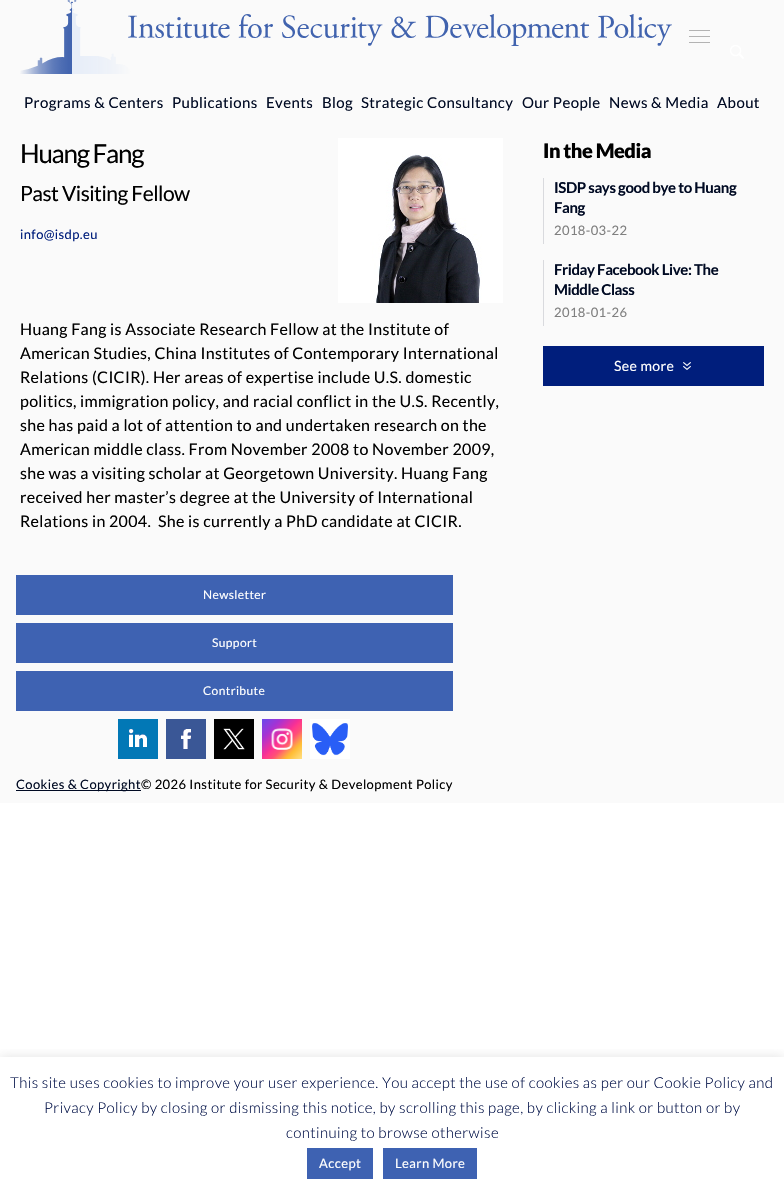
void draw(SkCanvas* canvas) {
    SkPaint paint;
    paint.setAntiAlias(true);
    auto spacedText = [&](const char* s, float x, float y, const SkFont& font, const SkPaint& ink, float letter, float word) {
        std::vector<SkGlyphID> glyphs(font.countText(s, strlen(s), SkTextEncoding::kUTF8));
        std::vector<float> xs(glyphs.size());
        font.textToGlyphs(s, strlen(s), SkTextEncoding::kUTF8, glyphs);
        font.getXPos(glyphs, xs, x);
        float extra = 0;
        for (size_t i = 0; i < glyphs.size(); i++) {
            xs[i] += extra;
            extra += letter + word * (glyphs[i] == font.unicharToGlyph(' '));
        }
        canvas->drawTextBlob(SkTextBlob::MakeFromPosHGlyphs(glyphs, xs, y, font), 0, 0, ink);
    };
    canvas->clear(0xFFFFFFFF);
    paint.setColor(0xFFFAFAFA);
    canvas->drawRect(SkRect::MakeXYWH(0, 0, 784, 803), paint);
    canvas->drawImageRect(SkImages::DeferredFromEncodedData(SkData::MakeFromFileName("img1.png")), SkRect::MakeXYWH(20, 0, 652, 74), SkSamplingOptions());
    paint.setColor(0xFFB3B3B3);
    canvas->drawRect(SkRect::MakeXYWH(689, 30, 21, 1), paint);
    canvas->drawRect(SkRect::MakeXYWH(689, 36, 21, 1), paint);
    canvas->drawRect(SkRect::MakeXYWH(689, 42, 21, 1), paint);
    canvas->drawImageRect(SkImages::DeferredFromEncodedData(SkData::MakeFromFileName("img2.png")), SkRect::MakeXYWH(730, 45, 14, 14), SkSamplingOptions());
    SkFont font1(fontMgr->matchFamilyStyle("Lato", SkFontStyle::Normal()), 15);
    font1.setSubpixel(true);
    paint.setColor(0xFF000A23);
    spacedText("Programs & Centers", 24, 108, font1, paint, 0.4f, 0);
    spacedText("Publications", 172, 108, font1, paint, 0.4f, 0);
    spacedText("Events", 266, 108, font1, paint, 0.4f, 0);
    spacedText("Blog", 322, 108, font1, paint, 0.4f, 0);
    spacedText("Strategic Consultancy", 361, 108, font1, paint, 0.4f, 0);
    spacedText("Our People", 522, 108, font1, paint, 0.4f, 0);
    spacedText("News & Media", 609, 108, font1, paint, 0.4f, 0);
    spacedText("About", 717, 108, font1, paint, 0.4f, 0);
    SkFont font2(fontMgr->matchFamilyStyle("Lato", SkFontStyle::Normal()), 26);
    font2.setSubpixel(true);
    paint.setColor(0xFF000000);
    spacedText("Huang Fang", 20, 163, font2, paint, -1.25f, 0);
    canvas->drawImageRect(SkImages::DeferredFromEncodedData(SkData::MakeFromFileName("img3.png")), SkRect::MakeXYWH(338, 138, 165, 165), SkSamplingOptions());
    SkFont font3(fontMgr->matchFamilyStyle("Lato", SkFontStyle::Normal()), 21);
    font3.setSubpixel(true);
    spacedText("Past Visiting Fellow", 20, 201, font3, paint, -0.5f, 0);
    SkFont font4(fontMgr->matchFamilyStyle("Lato", SkFontStyle::Normal()), 13);
    font4.setSubpixel(true);
    paint.setColor(0xFF001E7C);
    spacedText("info@isdp.eu", 20, 239, font4, paint, 0.4f, 0);
    SkFont font5(fontMgr->matchFamilyStyle("Lato", SkFontStyle::Normal()), 16);
    font5.setSubpixel(true);
    paint.setColor(0xFF000000);
    spacedText("Huang Fang is Associate Research Fellow at the Institute of", 20, 335, font5, paint, 0.32f, 0);
    spacedText("American Studies, China Institutes of Contemporary International", 20, 359, font5, paint, 0.32f, 0);
    spacedText("Relations (CICIR). Her areas of expertise include U.S. domestic", 20, 383, font5, paint, 0.32f, 0);
    spacedText("politics, immigration policy, and racial conflict in the U.S. Recently,", 20, 407, font5, paint, 0.32f, 0);
    spacedText("she has paid a lot of attention to and undertaken research on the", 20, 431, font5, paint, 0.32f, 0);
    spacedText("American middle class. From November 2008 to November 2009,", 20, 455, font5, paint, 0.32f, 0);
    spacedText("she was a visiting scholar at Georgetown University. Huang Fang", 20, 479, font5, paint, 0.32f, 0);
    spacedText("received her master’s degree at the University of International", 20, 503, font5, paint, 0.32f, 0);
    spacedText("Relations in 2004.  She is currently a PhD candidate at CICIR.", 20, 527, font5, paint, 0.32f, 0);
    SkFont font6(fontMgr->matchFamilyStyle("Lato", SkFontStyle(900, SkFontStyle::kNormal_Width, SkFontStyle::kUpright_Slant)), 20);
    font6.setSubpixel(true);
    spacedText("In the Media", 543, 158, font6, paint, -0.5f, 0);
    paint.setColor(0xFFD9DADE);
    canvas->drawRect(SkRect::MakeXYWH(543, 178, 1, 66), paint);
    SkFont font7(fontMgr->matchFamilyStyle("Lato", SkFontStyle::Bold()), 15);
    font7.setSubpixel(true);
    paint.setColor(0xFF000A23);
    spacedText("ISDP says good bye to Huang", 554, 193, font7, paint, -0.4f, 0);
    spacedText("Fang", 554, 213, font7, paint, -0.4f, 0);
    paint.setColor(0xFF808080);
    spacedText("2018-03-22", 554, 235, font4, paint, 0.4f, 0);
    paint.setColor(0xFFD9DADE);
    canvas->drawRect(SkRect::MakeXYWH(543, 260, 1, 66), paint);
    paint.setColor(0xFF000A23);
    spacedText("Friday Facebook Live: The", 554, 275, font7, paint, -0.4f, 0);
    spacedText("Middle Class", 554, 295, font7, paint, -0.4f, 0);
    paint.setColor(0xFF808080);
    spacedText("2018-01-26", 554, 317, font4, paint, 0.4f, 0);
    paint.setColor(0xFF001E7C);
    canvas->drawRect(SkRect::MakeXYWH(543, 346, 221, 40), paint);
    SkFont font8(fontMgr->matchFamilyStyle("Lato", SkFontStyle::Normal()), 14);
    font8.setSubpixel(true);
    paint.setColor(0xFFFFFFFF);
    spacedText("See more", 614, 371, font8, paint, 0.4f, 0);
    canvas->drawImageRect(SkImages::DeferredFromEncodedData(SkData::MakeFromFileName("img4.png")), SkRect::MakeXYWH(683, 362, 8, 8), SkSamplingOptions());
    paint.setColor(0xFF3E62B2);
    canvas->drawRect(SkRect::MakeXYWH(16, 575, 437, 40), paint);
    SkFont font9(fontMgr->matchFamilyStyle("Lato", SkFontStyle::Normal()), 12);
    font9.setSubpixel(true);
    paint.setColor(0xFFFFFFFF);
    spacedText("Newsletter", 203, 599, font9, paint, 0.4f, 0);
    paint.setColor(0xFF3E62B2);
    canvas->drawRect(SkRect::MakeXYWH(16, 623, 437, 40), paint);
    paint.setColor(0xFFFFFFFF);
    spacedText("Support", 212, 647, font9, paint, 0.4f, 0);
    paint.setColor(0xFF3E62B2);
    canvas->drawRect(SkRect::MakeXYWH(16, 671, 437, 40), paint);
    paint.setColor(0xFFFFFFFF);
    spacedText("Contribute", 203, 695, font9, paint, 0.4f, 0);
    canvas->drawImageRect(SkImages::DeferredFromEncodedData(SkData::MakeFromFileName("img5.png")), SkRect::MakeXYWH(118, 719, 40, 40), SkSamplingOptions());
    canvas->drawImageRect(SkImages::DeferredFromEncodedData(SkData::MakeFromFileName("img6.png")), SkRect::MakeXYWH(166, 719, 40, 40), SkSamplingOptions());
    paint.setColor(0xFF000000);
    canvas->drawRect(SkRect::MakeXYWH(214, 719, 40, 40), paint);
    canvas->drawImageRect(SkImages::DeferredFromEncodedData(SkData::MakeFromFileName("img7.png")), SkRect::MakeXYWH(223, 728, 22, 22), SkSamplingOptions());
    canvas->drawImageRect(SkImages::DeferredFromEncodedData(SkData::MakeFromFileName("img8.png")), SkRect::MakeXYWH(262, 719, 40, 40), SkSamplingOptions());
    canvas->drawImageRect(SkImages::DeferredFromEncodedData(SkData::MakeFromFileName("img9.png")), SkRect::MakeXYWH(310, 719, 40, 40), SkSamplingOptions());
    paint.setColor(0xFF000A23);
    canvas->drawRect(SkRect::MakeXYWH(16, 790, 125, 1), paint);
    spacedText("Cookies & Copyright", 16, 789, font4, paint, 0.4f, 0);
    paint.setColor(0xFF000000);
    spacedText("© 2026 Institute for Security & Development Policy", 141, 789, font4, paint, 0.4f, 0);
    canvas->save();
    canvas->clipRect(SkRect::MakeXYWH(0, 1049, 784, 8));
    paint.setColor(0x4DACABAB);
    paint.setMaskFilter(SkMaskFilter::MakeBlur(kNormal_SkBlurStyle, 5));
    canvas->drawRect(SkRect::MakeXYWH(0, 1056, 784, 139), paint);
    paint.setMaskFilter(nullptr);
    canvas->restore();
    SkFont font10(fontMgr->matchFamilyStyle("Lato", SkFontStyle(300, SkFontStyle::kNormal_Width, SkFontStyle::kUpright_Slant)), 15);
    font10.setSubpixel(true);
    paint.setColor(0xFF000F46);
    spacedText("This site uses cookies to improve your user experience. You accept the use of cookies as per our Cookie Policy and", 10, 1088, font10, paint, 0.4f, 0);
    spacedText("Privacy Policy by closing or dismissing this notice, by scrolling this page, by clicking a link or button or by", 44, 1113, font10, paint, 0.4f, 0);
    spacedText("continuing to browse otherwise", 286, 1138, font10, paint, 0.4f, 0);
    paint.setColor(0xFF3E62B2);
    canvas->drawRect(SkRect::MakeXYWH(307, 1148, 66, 31), paint);
    paint.setColor(0xFFFFFFFF);
    spacedText("Accept", 319, 1168, font4, paint, 0.4f, 0);
    paint.setColor(0xFF3E62B2);
    canvas->drawRect(SkRect::MakeXYWH(383, 1148, 94, 31), paint);
    paint.setColor(0xFFFFFFFF);
    spacedText("Learn More", 395, 1168, font4, paint, 0.4f, 0);
}
